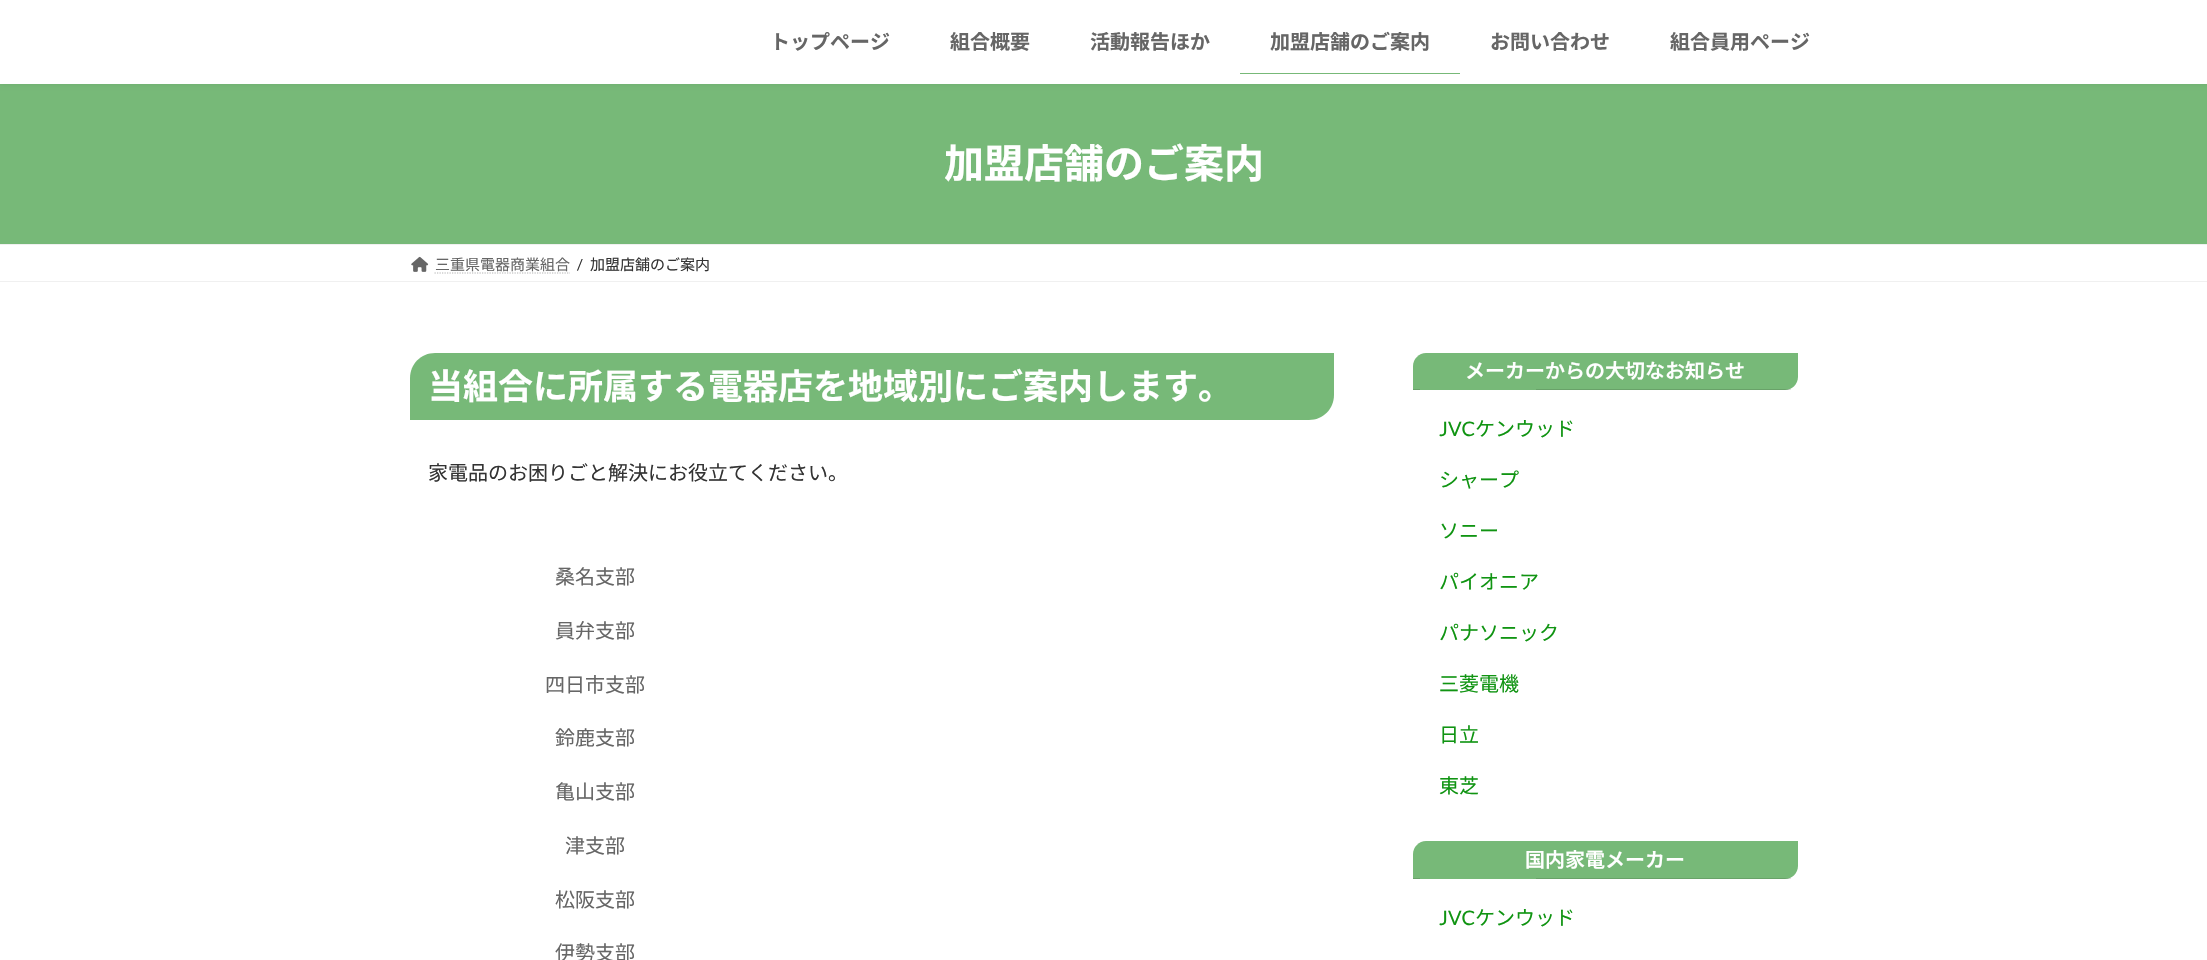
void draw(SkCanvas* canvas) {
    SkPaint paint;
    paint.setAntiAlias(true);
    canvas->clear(0xFFFFFFFF);
    paint.setColor(0xFF77B978);
    canvas->drawRect(SkRect::MakeXYWH(0, 84, 2207, 160), paint);
    paint.setColor(0x0D000000);
    paint.setMaskFilter(SkMaskFilter::MakeBlur(kNormal_SkBlurStyle, 2));
    canvas->drawRect(SkRect::MakeXYWH(0, 1, 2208, 84), paint);
    paint.setMaskFilter(nullptr);
    paint.setColor(0xFFFFFFFF);
    canvas->drawRect(SkRect::MakeXYWH(0, 0, 2207, 84), paint);
    SkFont font1(fontMgr->matchFamilyStyle("Noto Sans JP", SkFontStyle::Bold()), 20);
    font1.setSubpixel(true);
    paint.setColor(0xFF666666);
    canvas->drawString("トップページ", 770, 49, font1, paint);
    canvas->drawString("組合概要", 950, 49, font1, paint);
    canvas->drawString("活動報告ほか", 1090, 49, font1, paint);
    canvas->drawString("加盟店舗のご案内", 1270, 49, font1, paint);
    paint.setColor(0xFF77B978);
    canvas->drawRect(SkRect::MakeXYWH(1240, 73, 220, 1), paint);
    paint.setColor(0xFF666666);
    canvas->drawString("お問い合わせ", 1490, 49, font1, paint);
    canvas->drawString("組合員用ページ", 1670, 49, font1, paint);
    SkFont font2(fontMgr->matchFamilyStyle("Noto Sans JP", SkFontStyle::Bold()), 40);
    font2.setSubpixel(true);
    paint.setColor(0xFFFFFFFF);
    canvas->drawString("加盟店舗のご案内", 944, 178, font2, paint);
    paint.setColor(0xFFF0F0F0);
    canvas->drawRect(SkRect::MakeXYWH(0, 244, 2207, 1), paint);
    canvas->drawRect(SkRect::MakeXYWH(0, 281, 2207, 1), paint);
    canvas->drawImageRect(SkImages::DeferredFromEncodedData(SkData::MakeFromFileName("img1.png")), SkRect::MakeXYWH(411, 256, 18, 16), SkSamplingOptions());
    SkFont font3(fontMgr->matchFamilyStyle("Noto Sans JP", SkFontStyle::Normal()), 15);
    font3.setSubpixel(true);
    paint.setColor(0xFF666666);
    canvas->drawString("三重県電器商業組合", 435, 270, font3, paint);
    paint.setStyle(SkPaint::kStroke_Style);
    paint.setStrokeWidth(1.2f);
    paint.setColor(0xFFB3B3B3);
    paint.setPathEffect(SkDashPathEffect::Make({{1.25f, 1.25f}}, 0));
    canvas->drawPath(SkPathBuilder().moveTo(434.5f, 273).lineTo(570, 273).detach(), paint);
    paint.setPathEffect(nullptr);
    SkFont font4(fontMgr->matchFamilyStyle("Lato", SkFontStyle::Normal()), 15);
    font4.setSubpixel(true);
    paint.setStyle(SkPaint::kFill_Style);
    paint.setColor(0xFF333333);
    canvas->drawString("/", 577, 270, font4, paint);
    canvas->drawString("加盟店舗のご案内", 590, 270, font3, paint);
    paint.setColor(0xFF77B978);
    canvas->drawPath(SkPathBuilder().moveTo(435, 353).lineTo(1334, 353).lineTo(1334, 395).cubicTo(1334, 409, 1323, 420, 1309, 420).lineTo(410, 420).lineTo(410, 378).cubicTo(410, 364, 421, 353, 435, 353).close().detach(), paint);
    SkFont font5(fontMgr->matchFamilyStyle("Noto Sans JP", SkFontStyle::Bold()), 35);
    font5.setSubpixel(true);
    paint.setColor(0xFFFFFFFF);
    canvas->drawString("当組合に所属する電器店を地域別にご案内します。", 428, 399, font5, paint);
    SkFont font6(fontMgr->matchFamilyStyle("Noto Sans JP", SkFontStyle::Normal()), 20);
    font6.setSubpixel(true);
    paint.setColor(0xFF333333);
    canvas->drawString("家電品のお困りごと解決にお役立てください。", 428, 480, font6, paint);
    paint.setColor(0xFF666666);
    canvas->drawString("桑名支部", 555, 584, font6, paint);
    canvas->drawString("員弁支部", 555, 638, font6, paint);
    canvas->drawString("四日市支部", 545, 692, font6, paint);
    canvas->drawString("鈴鹿支部", 555, 745, font6, paint);
    canvas->drawString("亀山支部", 555, 799, font6, paint);
    canvas->drawString("津支部", 565, 853, font6, paint);
    canvas->drawString("松阪支部", 555, 907, font6, paint);
    canvas->drawString("伊勢支部", 555, 960, font6, paint);
    paint.setColor(0xFF77B978);
    canvas->drawPath(SkPathBuilder().moveTo(1426, 353).lineTo(1798, 353).lineTo(1798, 377).cubicTo(1798, 384, 1792, 390, 1785, 390).lineTo(1413, 390).lineTo(1413, 366).cubicTo(1413, 359, 1419, 353, 1426, 353).close().detach(), paint);
    paint.setColor(0x1F000000);
    canvas->drawRect(SkRect::MakeXYWH(1413, 389, 378, 1), paint);
    SkFont font7(fontMgr->matchFamilyStyle("Noto Sans JP", SkFontStyle(600, SkFontStyle::kNormal_Width, SkFontStyle::kUpright_Slant)), 20);
    font7.setSubpixel(true);
    paint.setColor(0xFFFFFFFF);
    canvas->drawString("メーカーからの大切なお知らせ", 1465, 378, font7, paint);
    paint.setColor(0xFF77B978);
    canvas->drawRect(SkRect::MakeXYWH(1420, 389, 116, 1), paint);
    SkFont font8(fontMgr->matchFamilyStyle("Lato", SkFontStyle::Normal()), 20);
    font8.setSubpixel(true);
    paint.setColor(0xFF109412);
    canvas->drawString("JVC", 1439, 436, font8, paint);
    canvas->drawString("ケンウッド", 1475, 436, font6, paint);
    canvas->drawString("シャープ", 1439, 487, font6, paint);
    canvas->drawString("ソニー", 1439, 538, font6, paint);
    canvas->drawString("パイオニア", 1439, 589, font6, paint);
    canvas->drawString("パナソニック", 1439, 640, font6, paint);
    canvas->drawString("三菱電機", 1439, 691, font6, paint);
    canvas->drawString("日立", 1439, 742, font6, paint);
    canvas->drawString("東芝", 1439, 793, font6, paint);
    paint.setColor(0xFF77B978);
    canvas->drawPath(SkPathBuilder().moveTo(1426, 841).lineTo(1798, 841).lineTo(1798, 866).cubicTo(1798, 873, 1792, 879, 1785, 879).lineTo(1413, 879).lineTo(1413, 854).cubicTo(1413, 847, 1419, 841, 1426, 841).close().detach(), paint);
    paint.setColor(0x1F000000);
    canvas->drawRect(SkRect::MakeXYWH(1413, 878, 378, 1), paint);
    paint.setColor(0xFFFFFFFF);
    canvas->drawString("国内家電メーカー", 1525, 867, font7, paint);
    paint.setColor(0xFF77B978);
    canvas->drawRect(SkRect::MakeXYWH(1420, 878, 116, 1), paint);
    paint.setColor(0xFF109412);
    canvas->drawString("JVC", 1439, 925, font8, paint);
    canvas->drawString("ケンウッド", 1475, 925, font6, paint);
}
